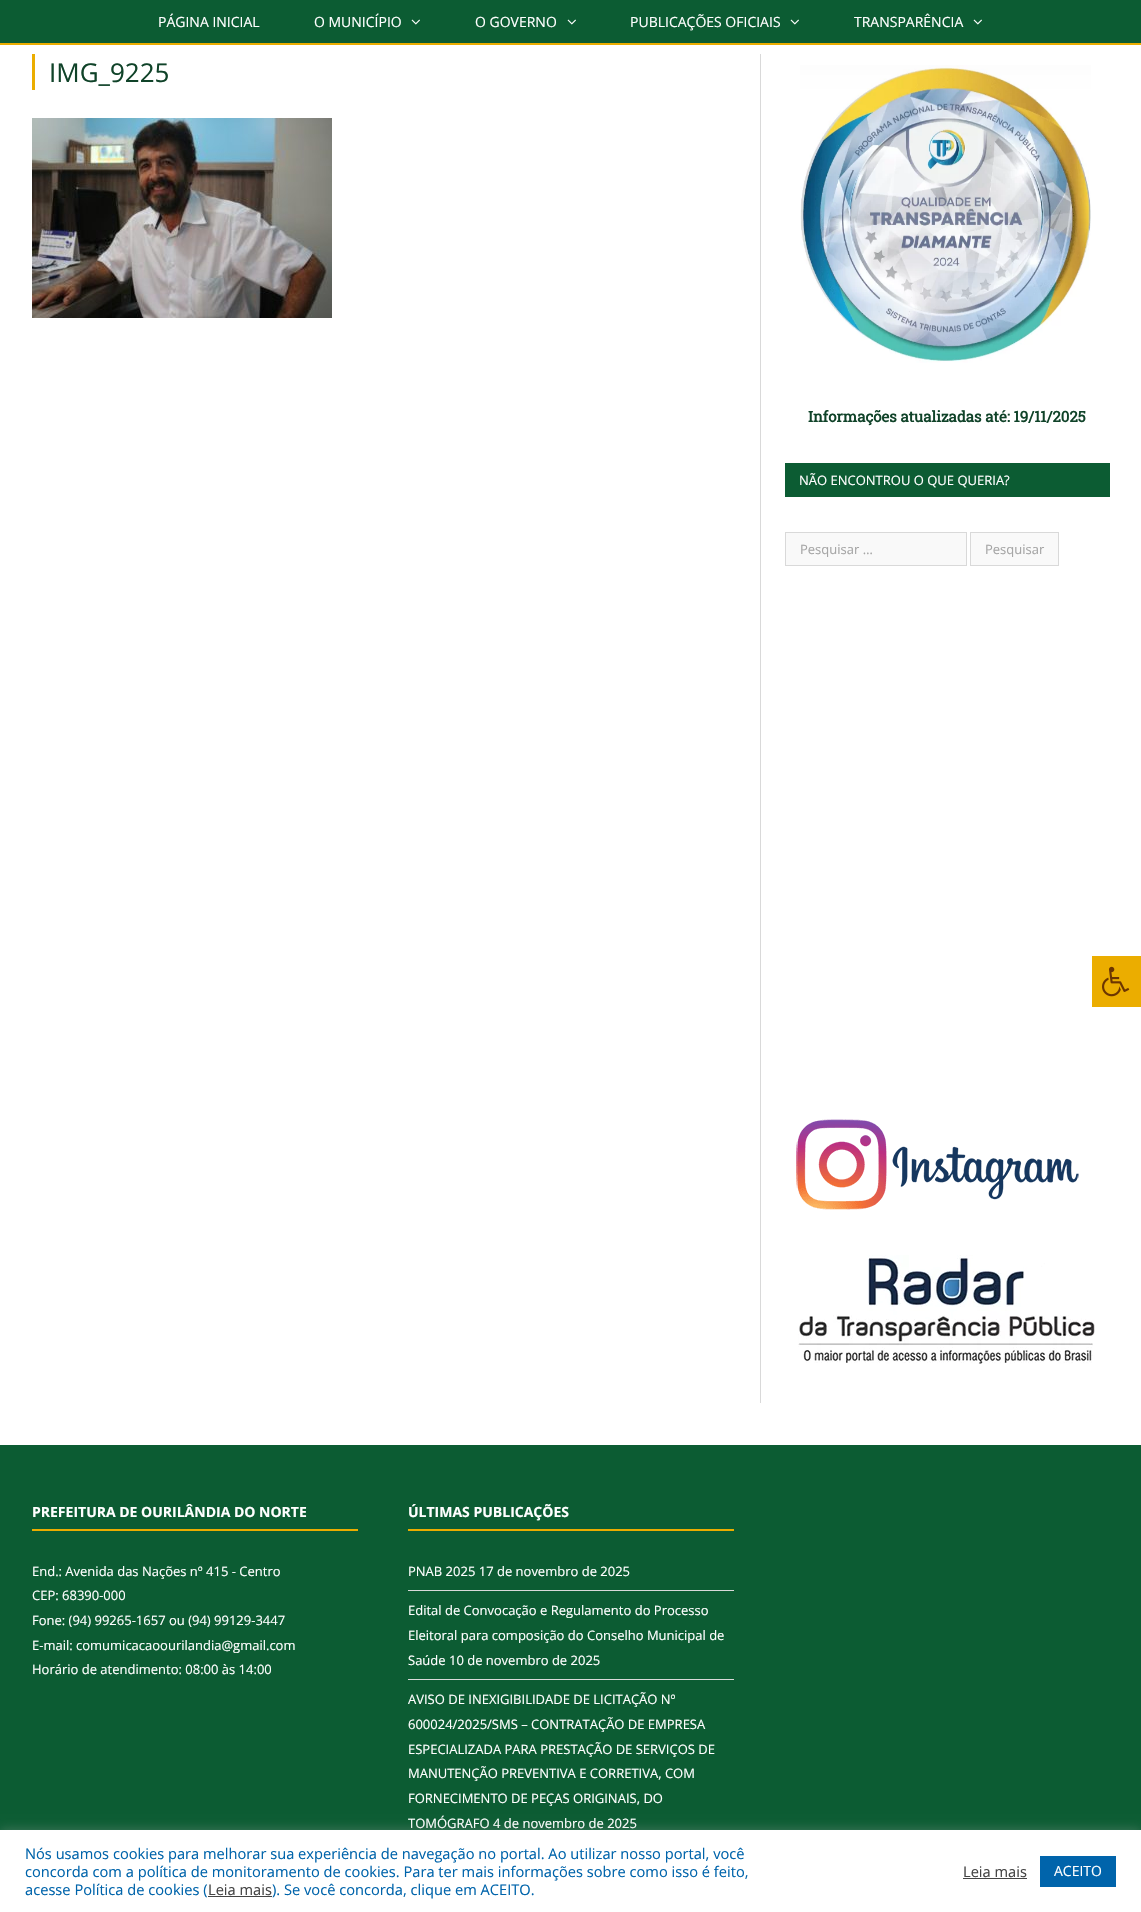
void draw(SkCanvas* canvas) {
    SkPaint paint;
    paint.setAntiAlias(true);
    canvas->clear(0xFFFFFFFF);
    paint.setColor(0xFF0C5C33);
    canvas->drawRect(SkRect::MakeXYWH(0, 0, 1141, 43), paint);
    paint.setColor(0xFFEBAD00);
    canvas->drawRect(SkRect::MakeXYWH(0, 43, 1141, 2), paint);
    SkFont font1(fontMgr->matchFamilyStyle("Open Sans", SkFontStyle::Normal()), 14);
    font1.setSubpixel(true);
    paint.setColor(0xFFFFFFFF);
    canvas->drawString("PÁGINA INICIAL", 158, 27, font1, paint);
    canvas->drawString("O MUNICÍPIO", 314, 27, font1, paint);
    canvas->drawImageRect(SkImages::DeferredFromEncodedData(SkData::MakeFromFileName("img1.png")), SkRect::MakeXYWH(411, 19, 9, 6), SkSamplingOptions());
    canvas->drawString("O GOVERNO", 475, 27, font1, paint);
    canvas->drawImageRect(SkImages::DeferredFromEncodedData(SkData::MakeFromFileName("img1.png")), SkRect::MakeXYWH(567, 19, 9, 6), SkSamplingOptions());
    canvas->drawString("PUBLICAÇÕES OFICIAIS", 630, 27, font1, paint);
    canvas->drawImageRect(SkImages::DeferredFromEncodedData(SkData::MakeFromFileName("img1.png")), SkRect::MakeXYWH(790, 19, 9, 6), SkSamplingOptions());
    canvas->drawString("TRANSPARÊNCIA", 854, 27, font1, paint);
    canvas->drawImageRect(SkImages::DeferredFromEncodedData(SkData::MakeFromFileName("img1.png")), SkRect::MakeXYWH(973, 19, 9, 6), SkSamplingOptions());
    paint.setColor(0xFFEBAD00);
    canvas->drawRect(SkRect::MakeXYWH(32, 54, 3, 36), paint);
    SkFont font2(fontMgr->matchFamilyStyle("Open Sans", SkFontStyle::Normal()), 26);
    font2.setSubpixel(true);
    paint.setColor(0xFF104329);
    canvas->drawString("IMG_9225", 49, 82, font2, paint);
    canvas->drawImageRect(SkImages::DeferredFromEncodedData(SkData::MakeFromFileName("img2.png")), SkRect::MakeXYWH(32, 118, 300, 200), SkSamplingOptions());
    paint.setColor(0xFFD9D9D9);
    canvas->drawRect(SkRect::MakeXYWH(760, 54, 1, 1349), paint);
    canvas->drawImageRect(SkImages::DeferredFromEncodedData(SkData::MakeFromFileName("img3.png")), SkRect::MakeXYWH(800, 65, 291, 298), SkSamplingOptions());
    SkFont font3(fontMgr->matchFamilyStyle("Roboto Slab", SkFontStyle::Bold()), 15);
    font3.setSubpixel(true);
    paint.setColor(0xFF104329);
    canvas->drawString("Informações atualizadas até: 19/11/2025", 808, 422, font3, paint);
    paint.setColor(0xFF0C5C33);
    canvas->drawRect(SkRect::MakeXYWH(785, 463, 325, 34), paint);
    SkFont font4(fontMgr->matchFamilyStyle("Open Sans", SkFontStyle::Normal()), 13);
    font4.setSubpixel(true);
    paint.setColor(0xFFFFFFFF);
    canvas->drawString("NÃO ENCONTROU O QUE QUERIA?", 799, 485, font4, paint);
    paint.setColor(0xFFF9F9F9);
    canvas->drawRect(SkRect::MakeXYWH(785.5f, 532.5f, 181, 33), paint);
    paint.setStyle(SkPaint::kStroke_Style);
    paint.setStrokeWidth(1);
    paint.setColor(0xFFD9D9D9);
    canvas->drawRect(SkRect::MakeXYWH(785.5f, 532.5f, 181, 33), paint);
    paint.setStyle(SkPaint::kFill_Style);
    paint.setColor(0xFFA6A6A6);
    canvas->drawString("Pesquisar …", 800, 554, font4, paint);
    paint.setColor(0xFFF9F9F9);
    canvas->drawRect(SkRect::MakeXYWH(970.5f, 532.5f, 88, 33), paint);
    paint.setStyle(SkPaint::kStroke_Style);
    paint.setColor(0xFFD9D9D9);
    canvas->drawRect(SkRect::MakeXYWH(970.5f, 532.5f, 88, 33), paint);
    paint.setStyle(SkPaint::kFill_Style);
    paint.setColor(0xFFA6A6A6);
    canvas->drawString("Pesquisar", 985, 554, font4, paint);
    canvas->drawImageRect(SkImages::DeferredFromEncodedData(SkData::MakeFromFileName("img4.png")), SkRect::MakeXYWH(796, 1119, 283, 91), SkSamplingOptions());
    canvas->drawImageRect(SkImages::DeferredFromEncodedData(SkData::MakeFromFileName("img5.png")), SkRect::MakeXYWH(798, 1255, 297, 109), SkSamplingOptions());
    paint.setColor(0xFF0C5C33);
    canvas->drawRect(SkRect::MakeXYWH(0, 1445, 1141, 385), paint);
    paint.setColor(0xFFEBAD00);
    canvas->drawRect(SkRect::MakeXYWH(32, 1529, 326, 2), paint);
    SkFont font5(fontMgr->matchFamilyStyle("Open Sans", SkFontStyle::Bold()), 14);
    font5.setSubpixel(true);
    paint.setColor(0xFFFFFFFF);
    canvas->drawString("PREFEITURA DE OURILÂNDIA DO NORTE", 32, 1517, font5, paint);
    canvas->drawString("End.: Avenida das Nações nº 415 - Centro", 32, 1576, font4, paint);
    canvas->drawString("CEP: 68390-000", 32, 1600, font4, paint);
    canvas->drawString("Fone: (94) 99265-1657 ou (94) 99129-3447", 32, 1625, font4, paint);
    canvas->drawString("E-mail: comumicacaoourilandia@gmail.com", 32, 1650, font4, paint);
    canvas->drawString("Horário de atendimento: 08:00 às 14:00", 32, 1674, font4, paint);
    paint.setColor(0xFFEBAD00);
    canvas->drawRect(SkRect::MakeXYWH(408, 1529, 326, 2), paint);
    paint.setColor(0xFFFFFFFF);
    canvas->drawString("ÚLTIMAS PUBLICAÇÕES", 408, 1517, font5, paint);
    paint.setColor(0xFFD9D9D9);
    canvas->drawRect(SkRect::MakeXYWH(408, 1590, 326, 1), paint);
    paint.setColor(0xFFFFFFFF);
    canvas->drawString("PNAB 2025 17 de novembro de 2025", 408, 1576, font4, paint);
    paint.setColor(0xFFD9D9D9);
    canvas->drawRect(SkRect::MakeXYWH(408, 1679, 326, 1), paint);
    paint.setColor(0xFFFFFFFF);
    canvas->drawString("Edital de Convocação e Regulamento do Processo", 408, 1615, font4, paint);
    canvas->drawString("Eleitoral para composição do Conselho Municipal de", 408, 1640, font4, paint);
    canvas->drawString("Saúde 10 de novembro de 2025", 408, 1665, font4, paint);
    canvas->drawString("AVISO DE INEXIGIBILIDADE DE LICITAÇÃO Nº", 408, 1704, font4, paint);
    canvas->drawString("600024/2025/SMS – CONTRATAÇÃO DE EMPRESA", 408, 1729, font4, paint);
    canvas->drawString("ESPECIALIZADA PARA PRESTAÇÃO DE SERVIÇOS DE", 408, 1754, font4, paint);
    canvas->drawString("MANUTENÇÃO PREVENTIVA E CORRETIVA, COM", 408, 1778, font4, paint);
    canvas->drawString("FORNECIMENTO DE PEÇAS ORIGINAIS, DO", 408, 1803, font4, paint);
    canvas->drawString("TOMÓGRAFO 4 de novembro de 2025", 408, 1828, font4, paint);
    paint.setColor(0xFFEBAD00);
    canvas->drawRect(SkRect::MakeXYWH(1092, 956, 49, 51), paint);
    canvas->drawImageRect(SkImages::DeferredFromEncodedData(SkData::MakeFromFileName("img6.png")), SkRect::MakeXYWH(1102, 966, 28, 31), SkSamplingOptions());
    paint.setColor(0x4DACABAB);
    paint.setMaskFilter(SkMaskFilter::MakeBlur(kNormal_SkBlurStyle, 5));
    canvas->drawRect(SkRect::MakeXYWH(0, 1829, 1141, 82), paint);
    paint.setMaskFilter(nullptr);
    paint.setColor(0xFFFFFFFF);
    canvas->drawRect(SkRect::MakeXYWH(0, 1830, 1141, 82), paint);
    SkFont font6(fontMgr->matchFamilyStyle("Open Sans", SkFontStyle::Normal()), 14.65f);
    font6.setSubpixel(true);
    paint.setColor(0xFF0064AB);
    canvas->drawString("Nós usamos cookies para melhorar sua experiência de navegação no portal. Ao utilizar nosso portal, você", 25, 1859, font6, paint);
    canvas->drawString("concorda com a política de monitoramento de cookies. Para ter mais informações sobre como isso é feito,", 25, 1877, font6, paint);
    canvas->drawString("acesse Política de cookies (", 25, 1895, font6, paint);
    paint.setColor(0xFF444444);
    canvas->drawString("Leia mais", 208, 1895, font6, paint);
    canvas->drawRect(SkRect::MakeXYWH(208, 1896, 64, 1), paint);
    paint.setColor(0xFF0064AB);
    canvas->drawString("). Se você concorda, clique em ACEITO.", 272, 1895, font6, paint);
    paint.setColor(0xFF444444);
    canvas->drawString("Leia mais", 963, 1877, font6, paint);
    canvas->drawRect(SkRect::MakeXYWH(963, 1878, 64, 1), paint);
    paint.setColor(0xFF0064AB);
    canvas->drawRect(SkRect::MakeXYWH(1040, 1856, 76, 31), paint);
    paint.setColor(0xFFFFFFFF);
    canvas->drawString("ACEITO", 1054, 1876, font1, paint);
}
